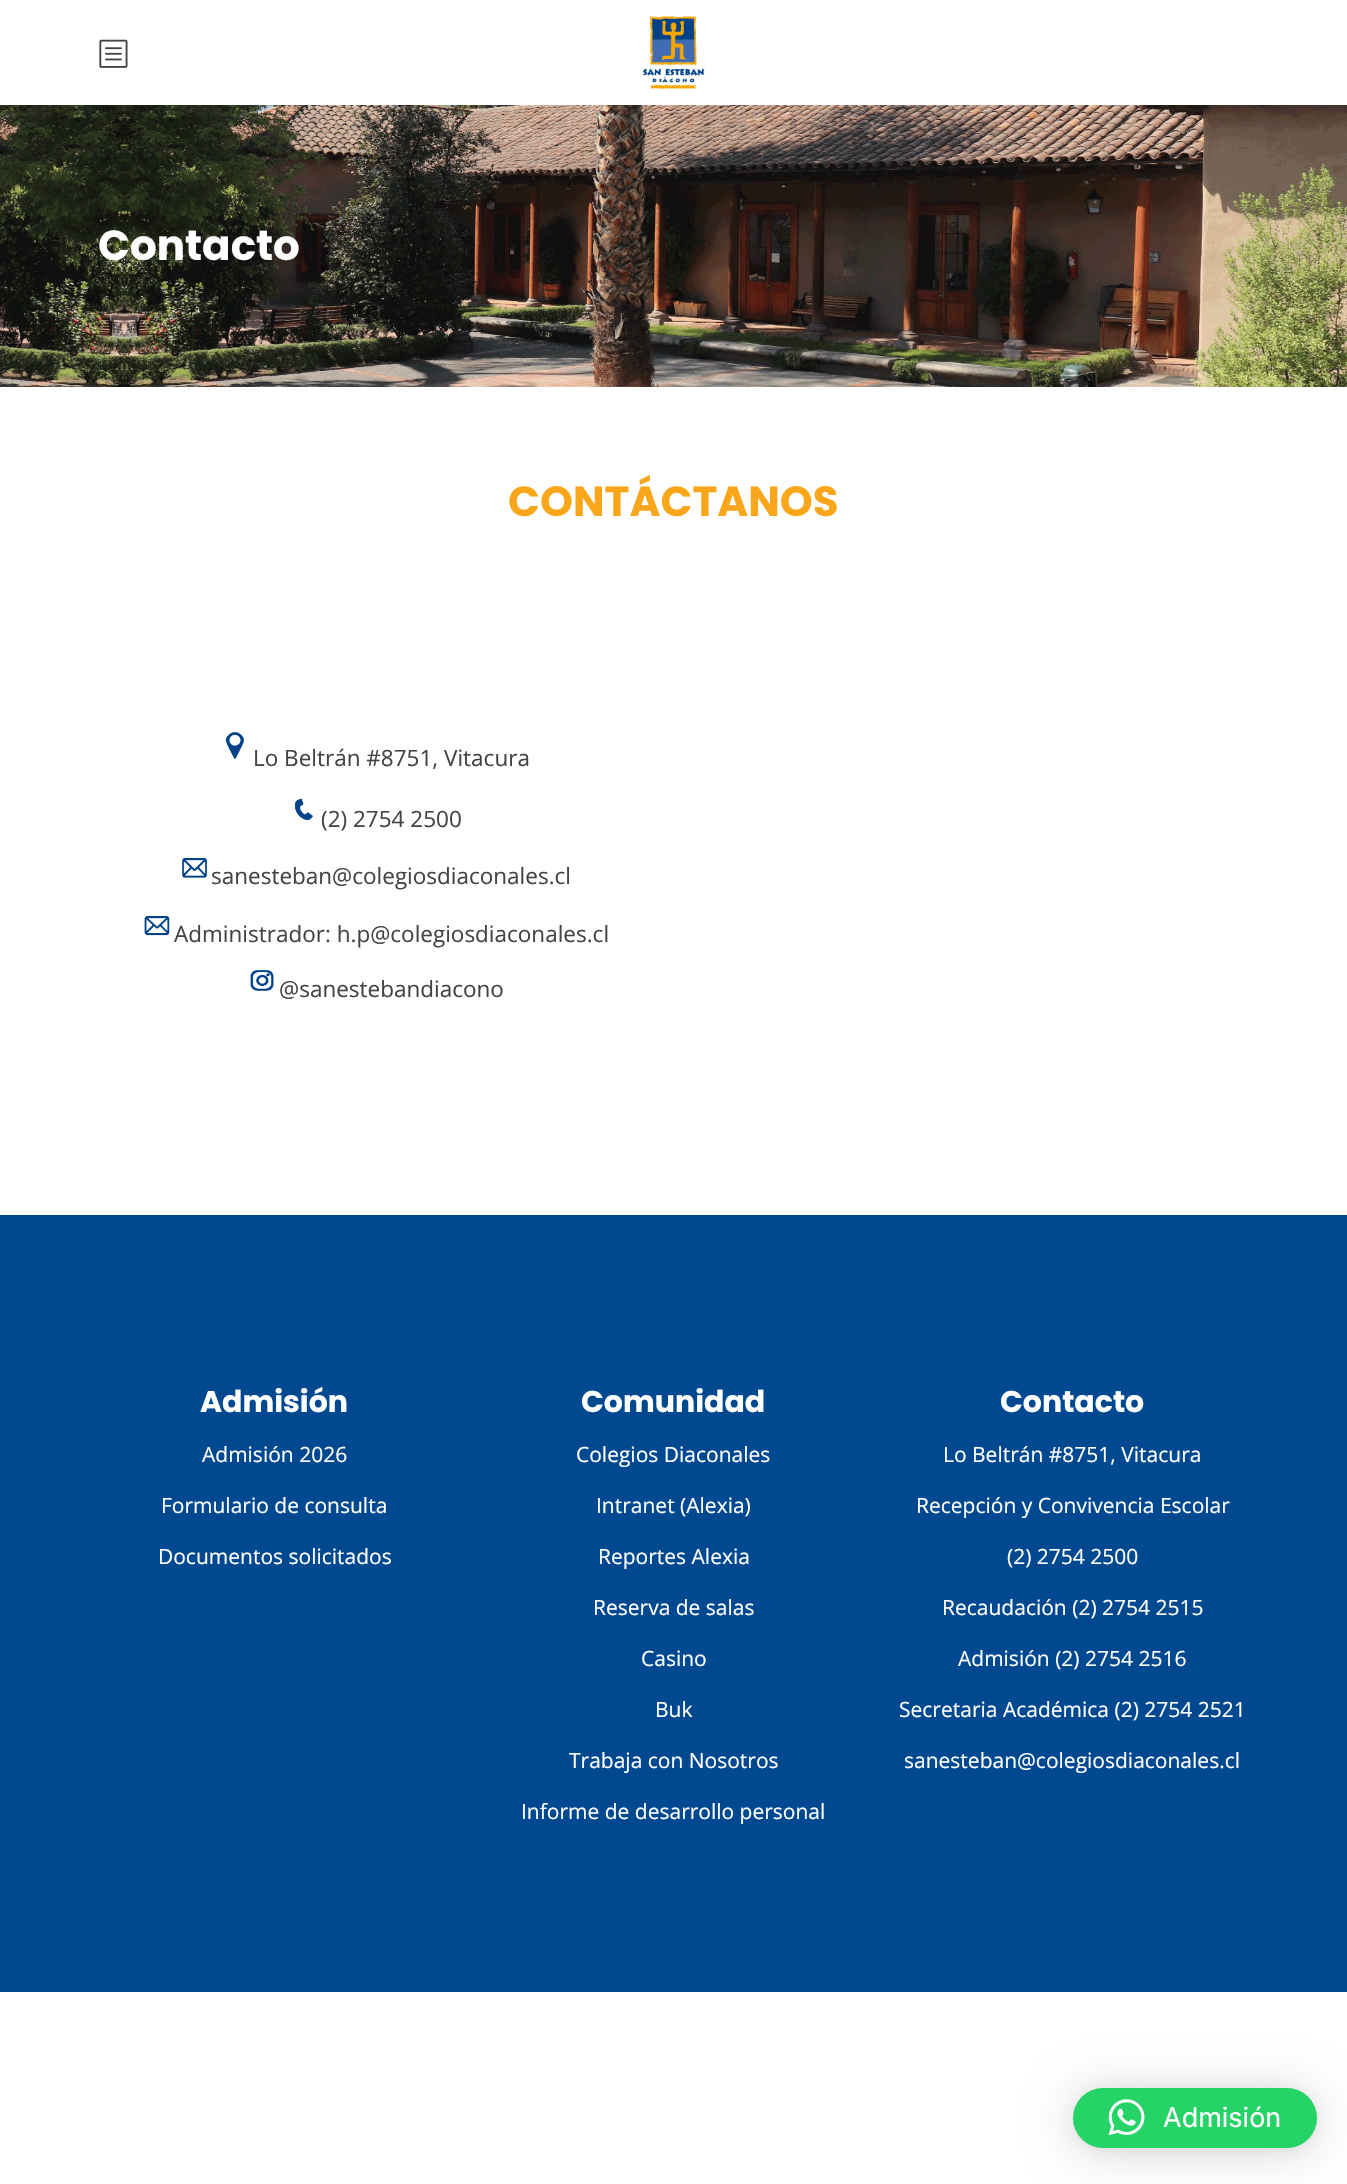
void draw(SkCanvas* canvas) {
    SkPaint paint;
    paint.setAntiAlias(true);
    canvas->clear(0xFFFFFFFF);
    canvas->drawImageRect(SkImages::DeferredFromEncodedData(SkData::MakeFromFileName("img1.png")), SkRect::MakeXYWH(99, 39, 29, 29), SkSamplingOptions());
    canvas->drawImageRect(SkImages::DeferredFromEncodedData(SkData::MakeFromFileName("img2.png")), SkRect::MakeXYWH(642, 16, 63, 73), SkSamplingOptions());
    canvas->drawImageRect(SkImages::DeferredFromEncodedData(SkData::MakeFromFileName("img3.png")), SkRect::MakeXYWH(0, 105, 1347, 282), SkSamplingOptions());
    SkFont font1(fontMgr->matchFamilyStyle("Poppins", SkFontStyle::Bold()), 42);
    font1.setSubpixel(true);
    paint.setColor(0xFFFFFFFF);
    canvas->drawString("Contacto", 98, 260, font1, paint);
    paint.setColor(0xFFFAA61A);
    canvas->drawString("CONTÁCTANOS", 508, 516, font1, paint);
    canvas->drawImageRect(SkImages::DeferredFromEncodedData(SkData::MakeFromFileName("img4.png")), SkRect::MakeXYWH(225, 732, 19, 27), SkSamplingOptions());
    SkFont font2(fontMgr->matchFamilyStyle("Open Sans", SkFontStyle::Normal()), 22.5f);
    font2.setSubpixel(true);
    paint.setColor(0xFF444444);
    canvas->drawString("Lo Beltrán #8751, Vitacura", 253, 766, font2, paint);
    canvas->drawImageRect(SkImages::DeferredFromEncodedData(SkData::MakeFromFileName("img5.png")), SkRect::MakeXYWH(294, 798, 20, 22), SkSamplingOptions());
    canvas->drawString("(2) 2754 2500", 321, 827, font2, paint);
    canvas->drawImageRect(SkImages::DeferredFromEncodedData(SkData::MakeFromFileName("img6.png")), SkRect::MakeXYWH(182, 858, 26, 20), SkSamplingOptions());
    canvas->drawString("sanesteban@colegiosdiaconales.cl", 211, 884, font2, paint);
    canvas->drawImageRect(SkImages::DeferredFromEncodedData(SkData::MakeFromFileName("img7.png")), SkRect::MakeXYWH(144, 916, 26, 20), SkSamplingOptions());
    canvas->drawString("Administrador: h.p@colegiosdiaconales.cl", 174, 942, font2, paint);
    canvas->drawImageRect(SkImages::DeferredFromEncodedData(SkData::MakeFromFileName("img8.png")), SkRect::MakeXYWH(250, 970, 24, 21), SkSamplingOptions());
    canvas->drawString("@sanestebandiacono", 279, 997, font2, paint);
    paint.setColor(0xFF004990);
    canvas->drawRect(SkRect::MakeXYWH(0, 1215, 1347, 777), paint);
    SkFont font3(fontMgr->matchFamilyStyle("Poppins", SkFontStyle::Bold()), 30);
    font3.setSubpixel(true);
    paint.setColor(0xFFFFFFFF);
    canvas->drawString("Admisión", 200, 1412, font3, paint);
    SkFont font4(fontMgr->matchFamilyStyle("Open Sans", SkFontStyle::Normal()), 21);
    font4.setSubpixel(true);
    canvas->drawString("Admisión 2026", 202, 1462, font4, paint);
    canvas->drawString("Formulario de consulta", 161, 1513, font4, paint);
    canvas->drawString("Documentos solicitados", 158, 1564, font4, paint);
    canvas->drawString("Comunidad", 581, 1412, font3, paint);
    canvas->drawString("Colegios Diaconales", 576, 1462, font4, paint);
    canvas->drawString("Intranet (Alexia)", 596, 1513, font4, paint);
    canvas->drawString("Reportes Alexia", 598, 1564, font4, paint);
    canvas->drawString("Reserva de salas", 593, 1615, font4, paint);
    canvas->drawString("Casino", 641, 1666, font4, paint);
    canvas->drawString("Buk", 655, 1717, font4, paint);
    canvas->drawString("Trabaja con Nosotros", 569, 1768, font4, paint);
    canvas->drawString("Informe de desarrollo personal", 521, 1819, font4, paint);
    canvas->drawString("Contacto", 1000, 1412, font3, paint);
    canvas->drawString("Lo Beltrán #8751, Vitacura", 943, 1462, font4, paint);
    canvas->drawString("Recepción y Convivencia Escolar", 916, 1513, font4, paint);
    canvas->drawString("(2) 2754 2500", 1007, 1564, font4, paint);
    canvas->drawString("Recaudación (2) 2754 2515", 942, 1615, font4, paint);
    canvas->drawString("Admisión (2) 2754 2516", 958, 1666, font4, paint);
    canvas->drawString("Secretaria Académica (2) 2754 2521", 899, 1717, font4, paint);
    canvas->drawString("sanesteban@colegiosdiaconales.cl", 904, 1768, font4, paint);
    paint.setColor(0x29000000);
    paint.setMaskFilter(SkMaskFilter::MakeBlur(kNormal_SkBlurStyle, 24));
    canvas->drawRoundRect(SkRect::MakeXYWH(1073, 2091, 244, 60), 30, 30, paint);
    paint.setMaskFilter(nullptr);
    paint.setColor(0x0F000000);
    paint.setMaskFilter(SkMaskFilter::MakeBlur(kNormal_SkBlurStyle, 4.5f));
    canvas->drawRoundRect(SkRect::MakeXYWH(1073, 2090, 244, 60), 30, 30, paint);
    paint.setMaskFilter(nullptr);
    paint.setColor(0xFF25D366);
    canvas->drawRoundRect(SkRect::MakeXYWH(1073, 2088, 244, 60), 30, 30, paint);
    canvas->drawImageRect(SkImages::DeferredFromEncodedData(SkData::MakeFromFileName("img9.png")), SkRect::MakeXYWH(1108, 2099, 37, 37), SkSamplingOptions());
    SkFont font5(fontMgr->matchFamilyStyle("Inter", SkFontStyle::Normal()), 27);
    font5.setSubpixel(true);
    paint.setColor(0xFFFFFFFF);
    canvas->drawString("Admisión", 1163, 2127, font5, paint);
}
